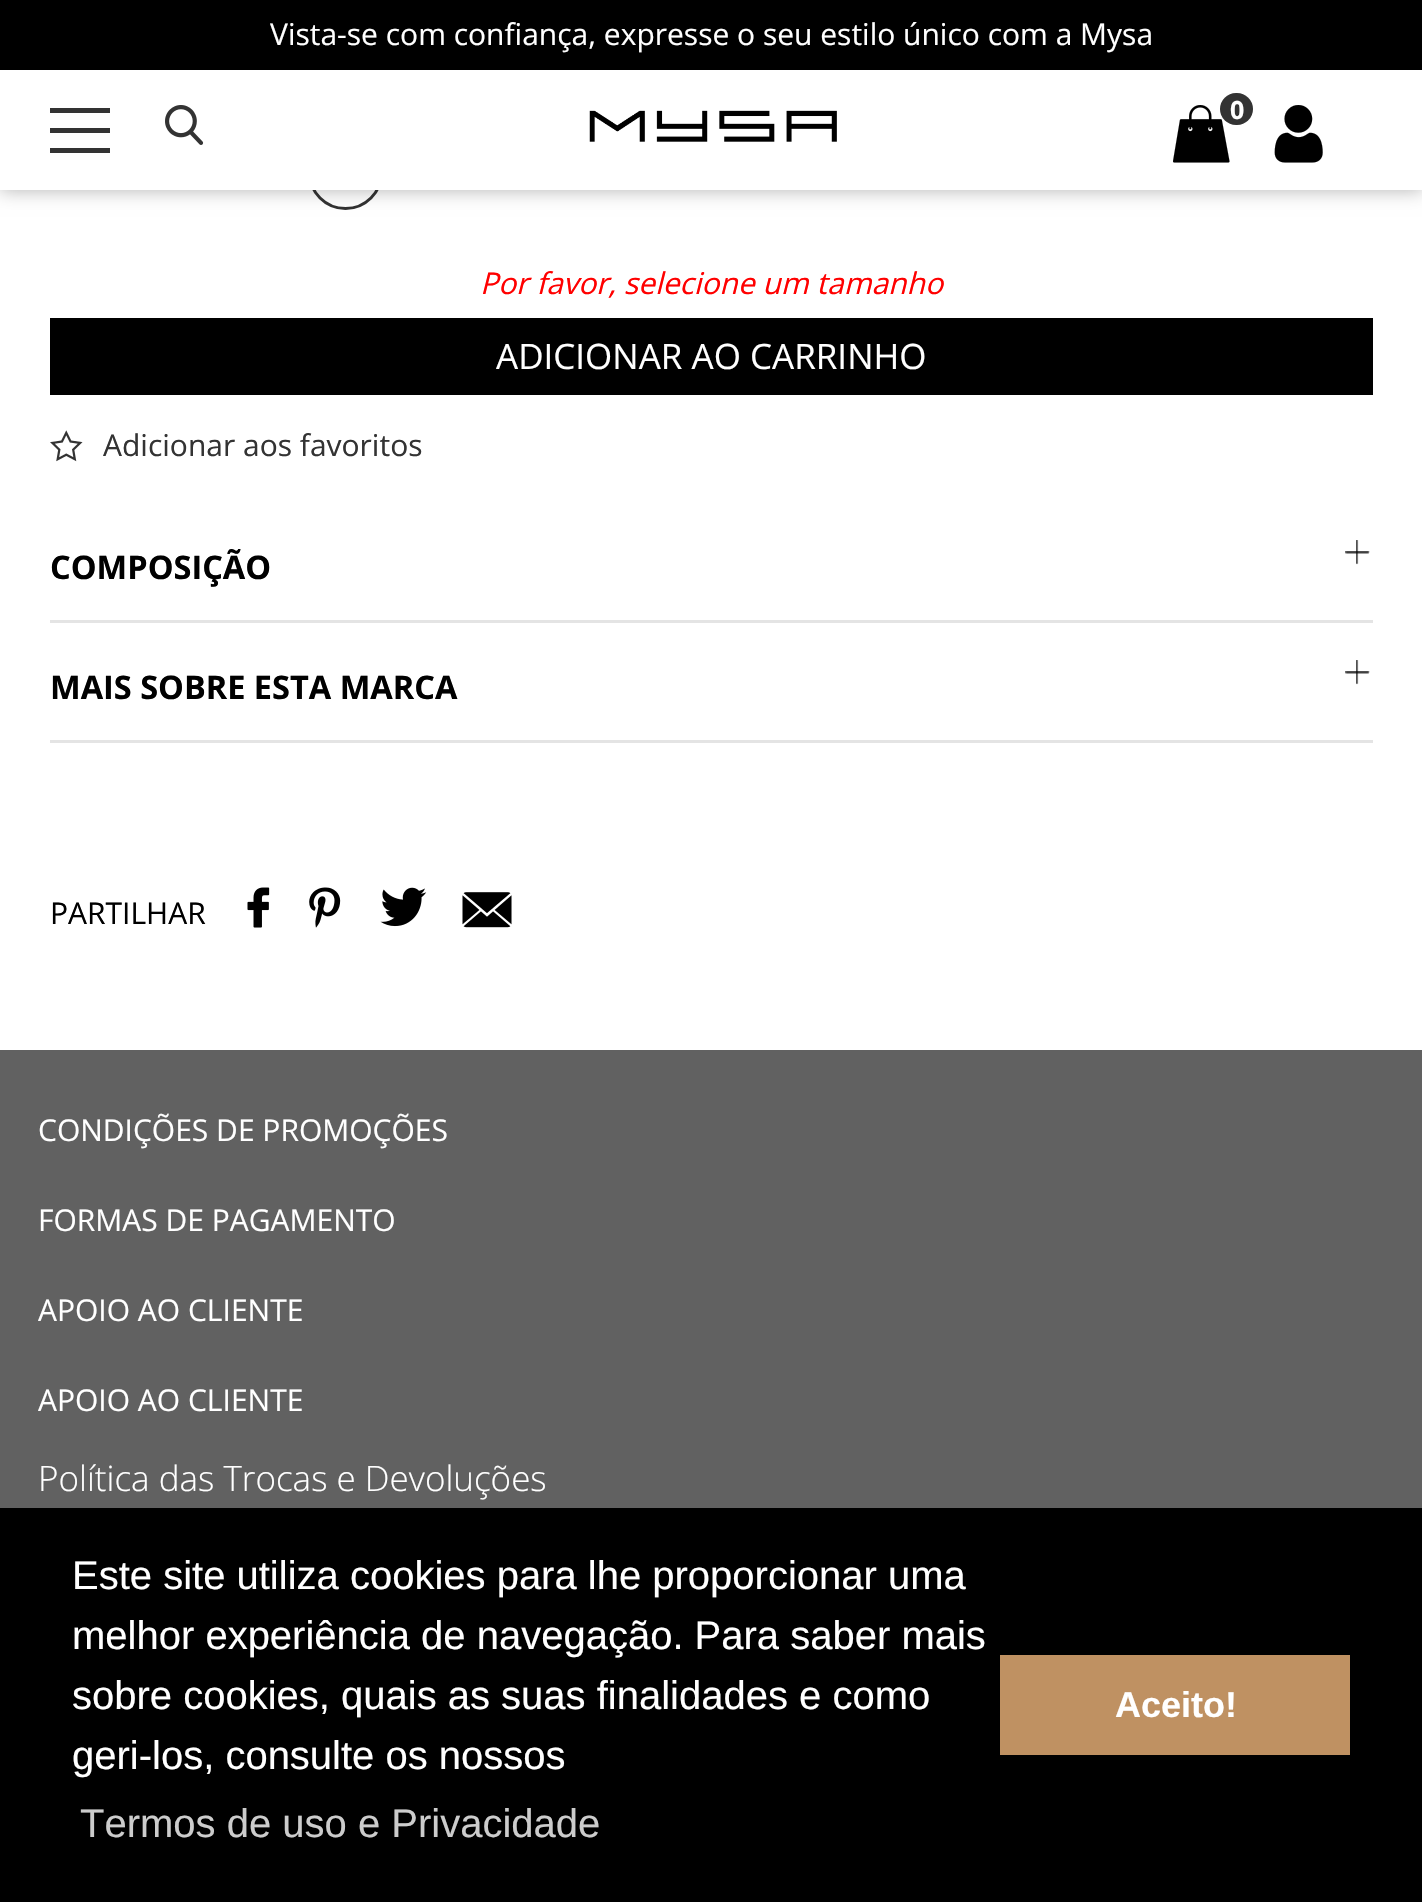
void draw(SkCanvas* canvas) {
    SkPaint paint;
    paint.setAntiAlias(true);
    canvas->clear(0xFFFFFFFF);
    paint.setColor(0xFF000000);
    canvas->drawRect(SkRect::MakeXYWH(0, 0, 1422, 70), paint);
    SkFont font1(fontMgr->matchFamilyStyle("Open Sans", SkFontStyle::Normal()), 30);
    font1.setSubpixel(true);
    paint.setColor(0xFFFFFFFF);
    canvas->drawString("Vista-se com confiança, expresse o seu estilo único com a Mysa", 270, 45, font1, paint);
    paint.setStyle(SkPaint::kStroke_Style);
    paint.setStrokeWidth(3);
    paint.setColor(0xFF333333);
    canvas->drawCircle(345.5f, 172.5f, 36, paint);
    SkFont font2(fontMgr->matchFamilyStyle("Open Sans", SkFontStyle::Italic()), 30);
    font2.setSubpixel(true);
    paint.setStyle(SkPaint::kFill_Style);
    paint.setColor(0xFFFF0000);
    canvas->drawString("Por favor, selecione um tamanho", 480, 294, font2, paint);
    paint.setColor(0xFF000000);
    canvas->drawRect(SkRect::MakeXYWH(50, 318, 1323, 77), paint);
    SkFont font3(fontMgr->matchFamilyStyle("Open Sans", SkFontStyle::Normal()), 35);
    font3.setSubpixel(true);
    paint.setColor(0xFFFFFFFF);
    canvas->drawString("ADICIONAR AO CARRINHO", 496, 369, font3, paint);
    canvas->drawImageRect(SkImages::DeferredFromEncodedData(SkData::MakeFromFileName("img1.png")), SkRect::MakeXYWH(50, 430, 33, 32), SkSamplingOptions());
    paint.setColor(0xFF333333);
    canvas->drawString("Adicionar aos favoritos", 103, 456, font1, paint);
    paint.setColor(0xFFE4E4E4);
    canvas->drawRect(SkRect::MakeXYWH(50, 620, 1323, 3), paint);
    SkFont font4(fontMgr->matchFamilyStyle("Open Sans", SkFontStyle::Bold()), 32.5f);
    font4.setSubpixel(true);
    paint.setColor(0xFF000000);
    canvas->drawString("COMPOSIÇÃO", 50, 579, font4, paint);
    canvas->drawImageRect(SkImages::DeferredFromEncodedData(SkData::MakeFromFileName("img2.png")), SkRect::MakeXYWH(1345, 540, 25, 25), SkSamplingOptions());
    paint.setColor(0xFFE4E4E4);
    canvas->drawRect(SkRect::MakeXYWH(50, 740, 1323, 3), paint);
    canvas->drawImageRect(SkImages::DeferredFromEncodedData(SkData::MakeFromFileName("img2.png")), SkRect::MakeXYWH(1345, 660, 25, 25), SkSamplingOptions());
    paint.setColor(0xFF000000);
    canvas->drawString("MAIS SOBRE ESTA MARCA", 50, 699, font4, paint);
    canvas->drawString("PARTILHAR", 50, 924, font1, paint);
    canvas->drawImageRect(SkImages::DeferredFromEncodedData(SkData::MakeFromFileName("img3.png")), SkRect::MakeXYWH(247, 887, 23, 41), SkSamplingOptions());
    canvas->drawImageRect(SkImages::DeferredFromEncodedData(SkData::MakeFromFileName("img4.png")), SkRect::MakeXYWH(309, 887, 32, 41), SkSamplingOptions());
    canvas->drawImageRect(SkImages::DeferredFromEncodedData(SkData::MakeFromFileName("img5.png")), SkRect::MakeXYWH(380, 887, 47, 40), SkSamplingOptions());
    canvas->drawImageRect(SkImages::DeferredFromEncodedData(SkData::MakeFromFileName("img6.png")), SkRect::MakeXYWH(462, 892, 50, 36), SkSamplingOptions());
    paint.setColor(0xFF616161);
    canvas->drawRect(SkRect::MakeXYWH(0, 1050, 1422, 458), paint);
    paint.setColor(0xFFFFFFFF);
    canvas->drawString("CONDIÇÕES DE PROMOÇÕES", 38, 1141, font1, paint);
    canvas->drawString("FORMAS DE PAGAMENTO", 38, 1231, font1, paint);
    canvas->drawString("APOIO AO CLIENTE", 38, 1321, font1, paint);
    canvas->drawString("APOIO AO CLIENTE", 38, 1411, font1, paint);
    SkFont font5(fontMgr->matchFamilyStyle("Open Sans", SkFontStyle(300, SkFontStyle::kNormal_Width, SkFontStyle::kUpright_Slant)), 35);
    font5.setSubpixel(true);
    canvas->drawString("Política das Trocas e Devoluções", 38, 1491, font5, paint);
    paint.setColor(0x4D000000);
    paint.setMaskFilter(SkMaskFilter::MakeBlur(kNormal_SkBlurStyle, 9));
    canvas->drawRect(SkRect::MakeXYWH(0, 70, 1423, 120), paint);
    paint.setMaskFilter(nullptr);
    paint.setColor(0xFFFFFFFF);
    canvas->drawRect(SkRect::MakeXYWH(0, 70, 1422, 120), paint);
    paint.setColor(0xFF333333);
    canvas->drawRect(SkRect::MakeXYWH(50, 128, 60, 5), paint);
    canvas->drawRect(SkRect::MakeXYWH(50, 108, 60, 5), paint);
    canvas->drawRect(SkRect::MakeXYWH(50, 148, 60, 5), paint);
    canvas->drawImageRect(SkImages::DeferredFromEncodedData(SkData::MakeFromFileName("img7.png")), SkRect::MakeXYWH(165, 105, 39, 40), SkSamplingOptions());
    canvas->drawImageRect(SkImages::DeferredFromEncodedData(SkData::MakeFromFileName("img8.png")), SkRect::MakeXYWH(589, 110, 248, 32), SkSamplingOptions());
    canvas->drawImageRect(SkImages::DeferredFromEncodedData(SkData::MakeFromFileName("img9.png")), SkRect::MakeXYWH(1173, 105, 57, 58), SkSamplingOptions());
    canvas->drawRoundRect(SkRect::MakeXYWH(1220, 93, 33, 32), 16, 16, paint);
    SkFont font6(fontMgr->matchFamilyStyle("Open Sans", SkFontStyle::Bold()), 25);
    font6.setSubpixel(true);
    paint.setColor(0xFFFFFFFF);
    canvas->drawString("0", 1230, 119, font6, paint);
    canvas->drawImageRect(SkImages::DeferredFromEncodedData(SkData::MakeFromFileName("img10.png")), SkRect::MakeXYWH(1274, 105, 49, 58), SkSamplingOptions());
    paint.setColor(0xFF000000);
    canvas->drawRect(SkRect::MakeXYWH(0, 1508, 1422, 394), paint);
    SkFont font7(fontMgr->matchFamilyStyle("Liberation Sans", SkFontStyle::Normal()), 40);
    font7.setSubpixel(true);
    paint.setColor(0xFFFFFFFF);
    canvas->drawString("Este site utiliza cookies para lhe proporcionar uma", 72, 1589, font7, paint);
    canvas->drawString("melhor experiência de navegação. Para saber mais", 72, 1649, font7, paint);
    canvas->drawString("sobre cookies, quais as suas finalidades e como", 72, 1709, font7, paint);
    canvas->drawString("geri-los, consulte os nossos", 72, 1769, font7, paint);
    paint.setColor(0xFFCCCCCC);
    canvas->drawString("Termos de uso e Privacidade", 80, 1837, font7, paint);
    paint.setColor(0xFFBF9162);
    canvas->drawRect(SkRect::MakeXYWH(1000, 1655, 350, 100), paint);
    SkFont font8(fontMgr->matchFamilyStyle("Liberation Sans", SkFontStyle::Bold()), 36);
    font8.setSubpixel(true);
    paint.setColor(0xFFFFFFFF);
    canvas->drawString("Aceito!", 1115, 1717, font8, paint);
}
